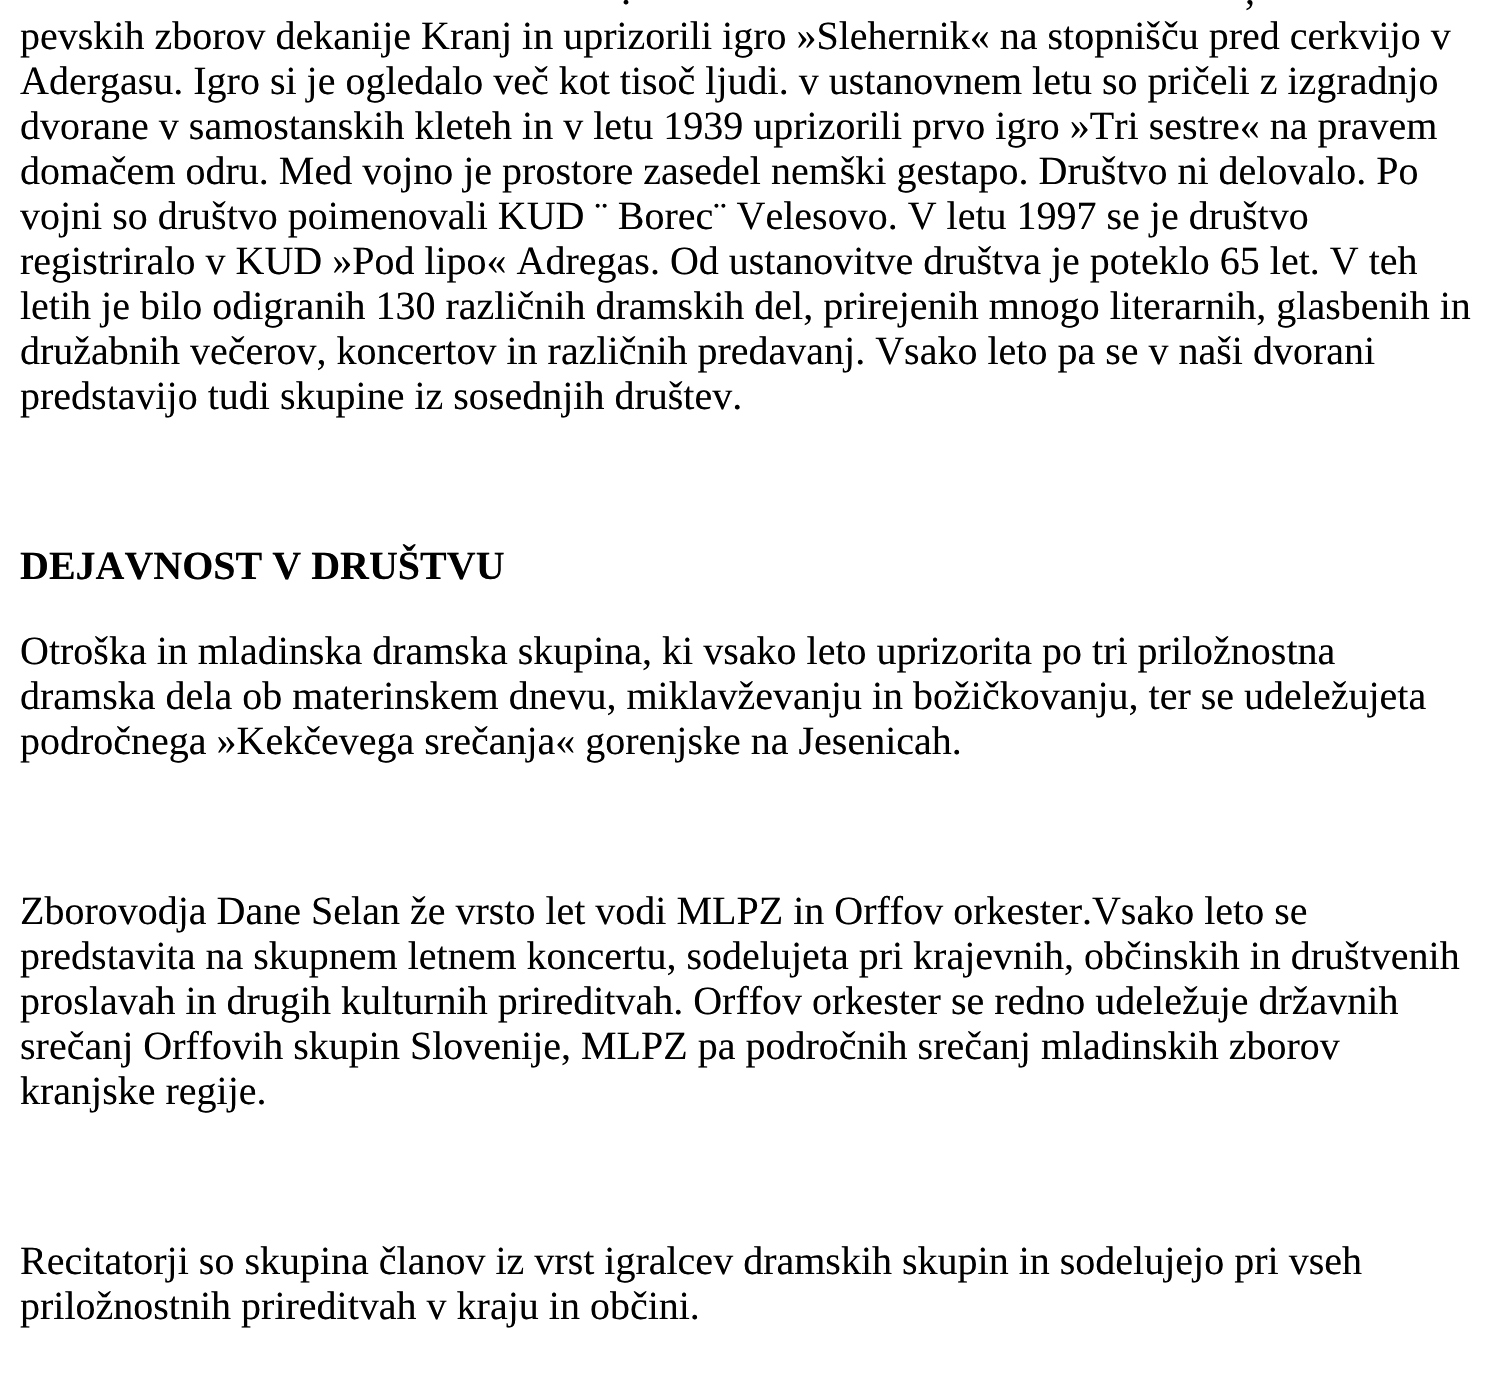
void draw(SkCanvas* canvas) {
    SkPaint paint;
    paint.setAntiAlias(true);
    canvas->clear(0xFFFFFFFF);
    SkFont font1(fontMgr->matchFamilyStyle("Liberation Serif", SkFontStyle::Normal()), 40);
    font1.setSubpixel(true);
    paint.setColor(0xFF000000);
    canvas->drawString(".", 621, 4, font1, paint);
    canvas->drawString(",", 1245, 4, font1, paint);
    canvas->drawString("pevskih zborov dekanije Kranj in uprizorili igro »Slehernik« na stopnišču pred cerkvijo v", 20, 49, font1, paint);
    canvas->drawString("Adergasu. Igro si je ogledalo več kot tisoč ljudi. v ustanovnem letu so pričeli z izgradnjo", 20, 94, font1, paint);
    canvas->drawString("dvorane v samostanskih kleteh in v letu 1939 uprizorili prvo igro »Tri sestre« na pravem", 20, 139, font1, paint);
    canvas->drawString("domačem odru. Med vojno je prostore zasedel nemški gestapo. Društvo ni delovalo. Po", 20, 184, font1, paint);
    canvas->drawString("vojni so društvo poimenovali KUD ¨ Borec¨ Velesovo. V letu 1997 se je društvo", 20, 229, font1, paint);
    canvas->drawString("registriralo v KUD »Pod lipo« Adregas. Od ustanovitve društva je poteklo 65 let. V teh", 20, 274, font1, paint);
    canvas->drawString("letih je bilo odigranih 130 različnih dramskih del, prirejenih mnogo literarnih, glasbenih in", 20, 319, font1, paint);
    canvas->drawString("družabnih večerov, koncertov in različnih predavanj. Vsako leto pa se v naši dvorani", 20, 364, font1, paint);
    canvas->drawString("predstavijo tudi skupine iz sosednjih društev.", 20, 409, font1, paint);
    SkFont font2(fontMgr->matchFamilyStyle("Liberation Serif", SkFontStyle::Bold()), 40);
    font2.setSubpixel(true);
    canvas->drawString("DEJAVNOST V DRUŠTVU", 20, 579, font2, paint);
    canvas->drawString("Otroška in mladinska dramska skupina, ki vsako leto uprizorita po tri priložnostna", 20, 664, font1, paint);
    canvas->drawString("dramska dela ob materinskem dnevu, miklavževanju in božičkovanju, ter se udeležujeta", 20, 709, font1, paint);
    canvas->drawString("področnega »Kekčevega srečanja« gorenjske na Jesenicah.", 20, 754, font1, paint);
    canvas->drawString("Zborovodja Dane Selan že vrsto let vodi MLPZ in Orffov orkester.Vsako leto se", 20, 924, font1, paint);
    canvas->drawString("predstavita na skupnem letnem koncertu, sodelujeta pri krajevnih, občinskih in društvenih", 20, 969, font1, paint);
    canvas->drawString("proslavah in drugih kulturnih prireditvah. Orffov orkester se redno udeležuje državnih", 20, 1014, font1, paint);
    canvas->drawString("srečanj Orffovih skupin Slovenije, MLPZ pa področnih srečanj mladinskih zborov", 20, 1059, font1, paint);
    canvas->drawString("kranjske regije.", 20, 1104, font1, paint);
    canvas->drawString("Recitatorji so skupina članov iz vrst igralcev dramskih skupin in sodelujejo pri vseh", 20, 1274, font1, paint);
    canvas->drawString("priložnostnih prireditvah v kraju in občini.", 20, 1319, font1, paint);
}
